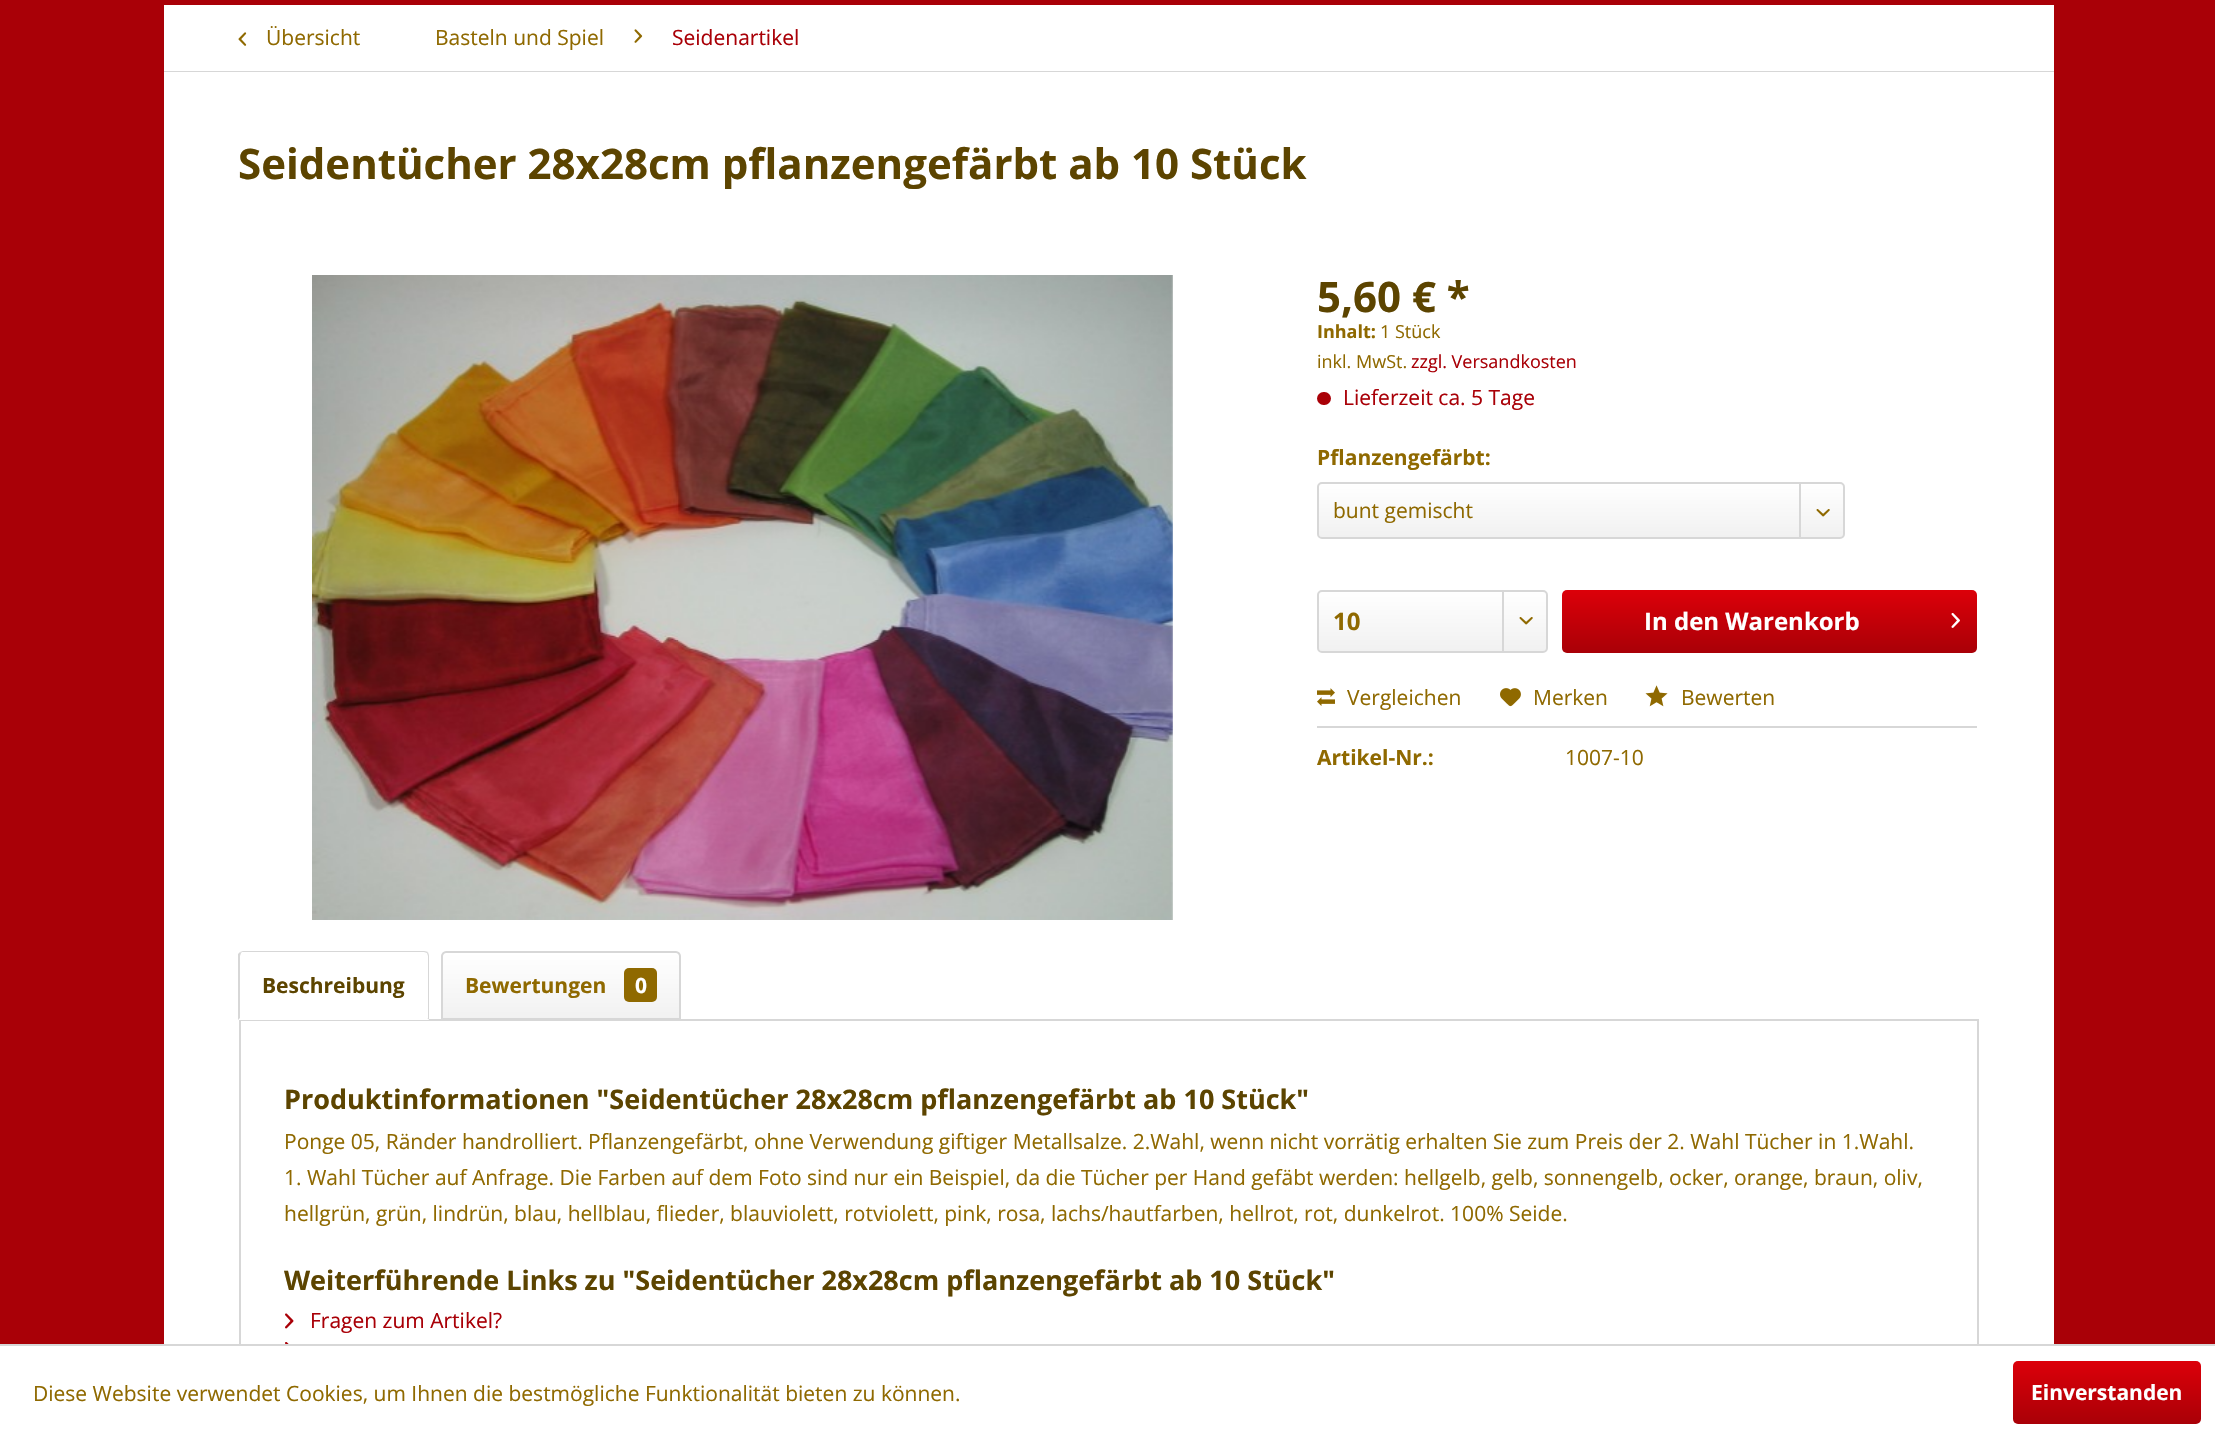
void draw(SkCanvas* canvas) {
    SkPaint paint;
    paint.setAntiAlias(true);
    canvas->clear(0xFFA90007);
    paint.setColor(0xFFFFFFFF);
    canvas->drawRect(SkRect::MakeXYWH(164, 5, 1890, 66), paint);
    paint.setColor(0xFFD7D7D7);
    canvas->drawRect(SkRect::MakeXYWH(164, 71, 1890, 1), paint);
    canvas->drawImageRect(SkImages::DeferredFromEncodedData(SkData::MakeFromFileName("img1.png")), SkRect::MakeXYWH(238, 32, 9, 14), SkSamplingOptions());
    SkFont font1(fontMgr->matchFamilyStyle("Open Sans", SkFontStyle::Normal()), 21);
    font1.setSubpixel(true);
    paint.setColor(0xFF8F6900);
    canvas->drawString("Übersicht", 266, 45, font1, paint);
    canvas->drawString("Basteln und Spiel", 435, 45, font1, paint);
    canvas->drawImageRect(SkImages::DeferredFromEncodedData(SkData::MakeFromFileName("img2.png")), SkRect::MakeXYWH(634, 29, 9, 14), SkSamplingOptions());
    paint.setColor(0xFFA90007);
    canvas->drawString("Seidenartikel", 672, 45, font1, paint);
    paint.setColor(0xFFFFFFFF);
    canvas->drawRect(SkRect::MakeXYWH(164, 72, 1890, 1272), paint);
    SkFont font2(fontMgr->matchFamilyStyle("Open Sans", SkFontStyle::Bold()), 42);
    font2.setSubpixel(true);
    paint.setColor(0xFF5C4400);
    canvas->drawString("Seidentücher 28x28cm pflanzengefärbt ab 10 Stück", 238, 179, font2, paint);
    canvas->drawImageRect(SkImages::DeferredFromEncodedData(SkData::MakeFromFileName("img3.png")), SkRect::MakeXYWH(312, 275, 861, 645), SkSamplingOptions());
    canvas->drawString("5,60 € *", 1317, 312, font2, paint);
    SkFont font3(fontMgr->matchFamilyStyle("Open Sans", SkFontStyle::Bold()), 18);
    font3.setSubpixel(true);
    paint.setColor(0xFF8F6900);
    canvas->drawString("Inhalt:", 1317, 338, font3, paint);
    SkFont font4(fontMgr->matchFamilyStyle("Open Sans", SkFontStyle::Normal()), 18);
    font4.setSubpixel(true);
    canvas->drawString("1 Stück", 1380, 338, font4, paint);
    canvas->drawString("inkl. MwSt.", 1317, 368, font4, paint);
    paint.setColor(0xFFA90007);
    canvas->drawString("zzgl. Versandkosten", 1411, 368, font4, paint);
    canvas->drawRoundRect(SkRect::MakeXYWH(1317, 392, 14, 13), 6.5f, 6.5f, paint);
    canvas->drawString("Lieferzeit ca. 5 Tage", 1343, 405, font1, paint);
    SkFont font5(fontMgr->matchFamilyStyle("Open Sans", SkFontStyle::Bold()), 21);
    font5.setSubpixel(true);
    paint.setColor(0xFF8F6900);
    canvas->drawString("Pflanzengefärbt:", 1317, 465, font5, paint);
    {
        const SkColor colors[] = {0xFFFFFFFF, 0xFFF1F1F1};
        const float stops[] = {0, 1};
        const SkPoint ends[] = {{1581, 483}, {1581, 537}};
        paint.setShader(SkGradientShader::MakeLinear(ends, colors, stops, 2, SkTileMode::kClamp));
        paint.setAlpha(255);
    }
    canvas->drawRoundRect(SkRect::MakeXYWH(1319, 483, 525, 54), 3, 3, paint);
    paint.setStyle(SkPaint::kStroke_Style);
    paint.setStrokeWidth(2);
    paint.setShader(nullptr);
    paint.setColor(0xFFD7D7D7);
    canvas->drawRoundRect(SkRect::MakeXYWH(1318, 483, 526, 55), 4, 4, paint);
    paint.setStyle(SkPaint::kFill_Style);
    paint.setColor(0xFF8F6900);
    canvas->drawString("bunt gemischt", 1333, 518, font1, paint);
    paint.setColor(0xFFD7D7D7);
    canvas->drawRect(SkRect::MakeXYWH(1799, 483, 2, 54), paint);
    canvas->drawImageRect(SkImages::DeferredFromEncodedData(SkData::MakeFromFileName("img4.png")), SkRect::MakeXYWH(1816, 509, 14, 8), SkSamplingOptions());
    {
        const SkColor colors[] = {0xFFFFFFFF, 0xFFF1F1F1};
        const float stops[] = {0, 1};
        const SkPoint ends[] = {{1433, 591}, {1433, 651}};
        paint.setShader(SkGradientShader::MakeLinear(ends, colors, stops, 2, SkTileMode::kClamp));
        paint.setAlpha(255);
    }
    canvas->drawRoundRect(SkRect::MakeXYWH(1319, 591, 228, 60), 3, 3, paint);
    paint.setStyle(SkPaint::kStroke_Style);
    paint.setShader(nullptr);
    paint.setColor(0xFFD7D7D7);
    canvas->drawRoundRect(SkRect::MakeXYWH(1318, 591, 229, 61), 4, 4, paint);
    SkFont font6(fontMgr->matchFamilyStyle("Open Sans", SkFontStyle::Bold()), 24);
    font6.setSubpixel(true);
    paint.setStyle(SkPaint::kFill_Style);
    paint.setColor(0xFF8F6900);
    canvas->drawString("10", 1333, 630, font6, paint);
    paint.setColor(0xFFD7D7D7);
    canvas->drawRect(SkRect::MakeXYWH(1502, 591, 2, 60), paint);
    canvas->drawImageRect(SkImages::DeferredFromEncodedData(SkData::MakeFromFileName("img5.png")), SkRect::MakeXYWH(1519, 617, 14, 8), SkSamplingOptions());
    {
        const SkColor colors[] = {0xFFDC0009, 0xFFA90007};
        const float stops[] = {0, 1};
        const SkPoint ends[] = {{1769, 590}, {1769, 653}};
        paint.setShader(SkGradientShader::MakeLinear(ends, colors, stops, 2, SkTileMode::kClamp));
        paint.setAlpha(255);
    }
    canvas->drawRoundRect(SkRect::MakeXYWH(1562, 590, 415, 63), 5, 5, paint);
    paint.setShader(nullptr);
    paint.setColor(0xFFFFFFFF);
    canvas->drawString("In den Warenkorb", 1644, 630, font6, paint);
    canvas->drawImageRect(SkImages::DeferredFromEncodedData(SkData::MakeFromFileName("img6.png")), SkRect::MakeXYWH(1951, 613, 9, 15), SkSamplingOptions());
    paint.setColor(0xFFD7D7D7);
    canvas->drawRect(SkRect::MakeXYWH(1317, 726, 660, 2), paint);
    canvas->drawImageRect(SkImages::DeferredFromEncodedData(SkData::MakeFromFileName("img7.png")), SkRect::MakeXYWH(1317, 688, 18, 18), SkSamplingOptions());
    paint.setColor(0xFF8F6900);
    canvas->drawString("Vergleichen", 1347, 705, font1, paint);
    canvas->drawImageRect(SkImages::DeferredFromEncodedData(SkData::MakeFromFileName("img8.png")), SkRect::MakeXYWH(1500, 688, 21, 19), SkSamplingOptions());
    canvas->drawString("Merken", 1533, 705, font1, paint);
    canvas->drawImageRect(SkImages::DeferredFromEncodedData(SkData::MakeFromFileName("img9.png")), SkRect::MakeXYWH(1645, 685, 23, 22), SkSamplingOptions());
    canvas->drawString("Bewerten", 1681, 705, font1, paint);
    canvas->drawString("Artikel-Nr.:", 1317, 765, font5, paint);
    canvas->drawString("1007-10", 1565, 765, font1, paint);
    paint.setStyle(SkPaint::kStroke_Style);
    paint.setColor(0xFFD7D7D7);
    canvas->drawRect(SkRect::MakeXYWH(240, 1020, 1738, 388), paint);
    paint.setStyle(SkPaint::kFill_Style);
    paint.setColor(0xFFFFFFFF);
    canvas->drawPath(SkPathBuilder().moveTo(244, 951).lineTo(424, 951).cubicTo(427, 951, 429, 953, 429, 956).lineTo(429, 1020).lineTo(239, 1020).lineTo(239, 956).cubicTo(239, 953, 241, 951, 244, 951).close().detach(), paint);
    paint.setColor(0xFFD7D7D7);
    canvas->drawPath(SkPathBuilder().moveTo(243, 951).lineTo(240, 952).lineTo(241, 953).lineTo(242, 952).lineTo(424, 952).lineTo(427, 953).lineTo(428, 952).cubicTo(427, 952, 426, 951, 424, 951).close().detach(), paint);
    canvas->drawPath(SkPathBuilder().moveTo(429, 1020).lineTo(429, 956).cubicTo(429, 954, 428, 953, 428, 952).lineTo(427, 953).lineTo(428, 956).lineTo(428, 1018).lineTo(427, 1018).close().detach(), paint);
    paint.setColor(0xFFFFFFFF);
    canvas->drawPath(SkPathBuilder().moveTo(429, 1020).lineTo(427, 1018).lineTo(240, 1018).lineTo(238, 1020).close().detach(), paint);
    paint.setColor(0xFFD7D7D7);
    canvas->drawPath(SkPathBuilder().moveTo(238, 1020).lineTo(238, 954).lineTo(240, 952).lineTo(241, 953).lineTo(240, 956).lineTo(240, 1018).close().detach(), paint);
    paint.setColor(0xFF5C4400);
    canvas->drawString("Beschreibung", 262, 993, font5, paint);
    {
        const SkColor colors[] = {0xFFFFFFFF, 0xFFF1F1F1};
        const float stops[] = {0, 1};
        const SkPoint ends[] = {{561, 953}, {561, 1019}};
        paint.setShader(SkGradientShader::MakeLinear(ends, colors, stops, 2, SkTileMode::kClamp));
        paint.setAlpha(255);
    }
    canvas->drawPath(SkPathBuilder().moveTo(446, 953).lineTo(677, 953).cubicTo(678.5f, 953, 680, 954.5f, 680, 956).lineTo(680, 1019).lineTo(443, 1019).lineTo(443, 956).cubicTo(443, 954.5f, 444.5f, 953, 446, 953).close().detach(), paint);
    paint.setStyle(SkPaint::kStroke_Style);
    paint.setShader(nullptr);
    paint.setColor(0xFFD7D7D7);
    canvas->drawPath(SkPathBuilder().moveTo(446, 952).lineTo(676, 952).cubicTo(678, 952, 680, 954, 680, 956).lineTo(680, 1019).lineTo(442, 1019).lineTo(442, 956).cubicTo(442, 954, 444, 952, 446, 952).close().detach(), paint);
    paint.setStyle(SkPaint::kFill_Style);
    paint.setColor(0xFF8F6900);
    canvas->drawString("Bewertungen", 465, 993, font5, paint);
    canvas->drawRoundRect(SkRect::MakeXYWH(624, 968, 33, 34), 5, 5, paint);
    paint.setColor(0xFFFFFFFF);
    canvas->drawString("0", 635, 993, font5, paint);
    SkFont font7(fontMgr->matchFamilyStyle("Open Sans", SkFontStyle::Bold()), 27);
    font7.setSubpixel(true);
    paint.setColor(0xFF5C4400);
    canvas->drawString("Produktinformationen \"Seidentücher 28x28cm pflanzengefärbt ab 10 Stück\"", 284, 1109, font7, paint);
    paint.setColor(0xFF8F6900);
    canvas->drawString("Ponge 05, Ränder handrolliert. Pflanzengefärbt, ohne Verwendung giftiger Metallsalze. 2.Wahl, wenn nicht vorrätig erhalten Sie zum Preis der 2. Wahl Tücher in 1.Wahl.", 284, 1149, font1, paint);
    canvas->drawString("1. Wahl Tücher auf Anfrage. Die Farben auf dem Foto sind nur ein Beispiel, da die Tücher per Hand gefäbt werden: hellgelb, gelb, sonnengelb, ocker, orange, braun, oliv,", 284, 1185, font1, paint);
    canvas->drawString("hellgrün, grün, lindrün, blau, hellblau, flieder, blauviolett, rotviolett, pink, rosa, lachs/hautfarben, hellrot, rot, dunkelrot. 100% Seide.", 284, 1221, font1, paint);
    paint.setColor(0xFF5C4400);
    canvas->drawString("Weiterführende Links zu \"Seidentücher 28x28cm pflanzengefärbt ab 10 Stück\"", 284, 1290, font7, paint);
    canvas->drawImageRect(SkImages::DeferredFromEncodedData(SkData::MakeFromFileName("img10.png")), SkRect::MakeXYWH(285, 1313, 9, 16), SkSamplingOptions());
    paint.setColor(0xFFA90007);
    canvas->drawString("Fragen zum Artikel?", 310, 1328, font1, paint);
    canvas->drawImageRect(SkImages::DeferredFromEncodedData(SkData::MakeFromFileName("img11.png")), SkRect::MakeXYWH(285, 1342, 4, 2), SkSamplingOptions());
    paint.setColor(0xFFFFFFFF);
    canvas->drawRect(SkRect::MakeXYWH(0, 1346, 2215, 93), paint);
    paint.setColor(0xFFD7D7D7);
    canvas->drawRect(SkRect::MakeXYWH(0, 1344, 2215, 2), paint);
    paint.setColor(0xFF8F6900);
    canvas->drawString("Diese Website verwendet Cookies, um Ihnen die bestmögliche Funktionalität bieten zu können.", 33, 1401, font1, paint);
    {
        const SkColor colors[] = {0xFFDC0009, 0xFFA90007};
        const float stops[] = {0, 1};
        const SkPoint ends[] = {{2107, 1361}, {2107, 1424}};
        paint.setShader(SkGradientShader::MakeLinear(ends, colors, stops, 2, SkTileMode::kClamp));
        paint.setAlpha(255);
    }
    canvas->drawRoundRect(SkRect::MakeXYWH(2013, 1361, 188, 63), 5, 5, paint);
    paint.setShader(nullptr);
    paint.setColor(0xFFFFFFFF);
    canvas->drawString("Einverstanden", 2031, 1400, font5, paint);
}
